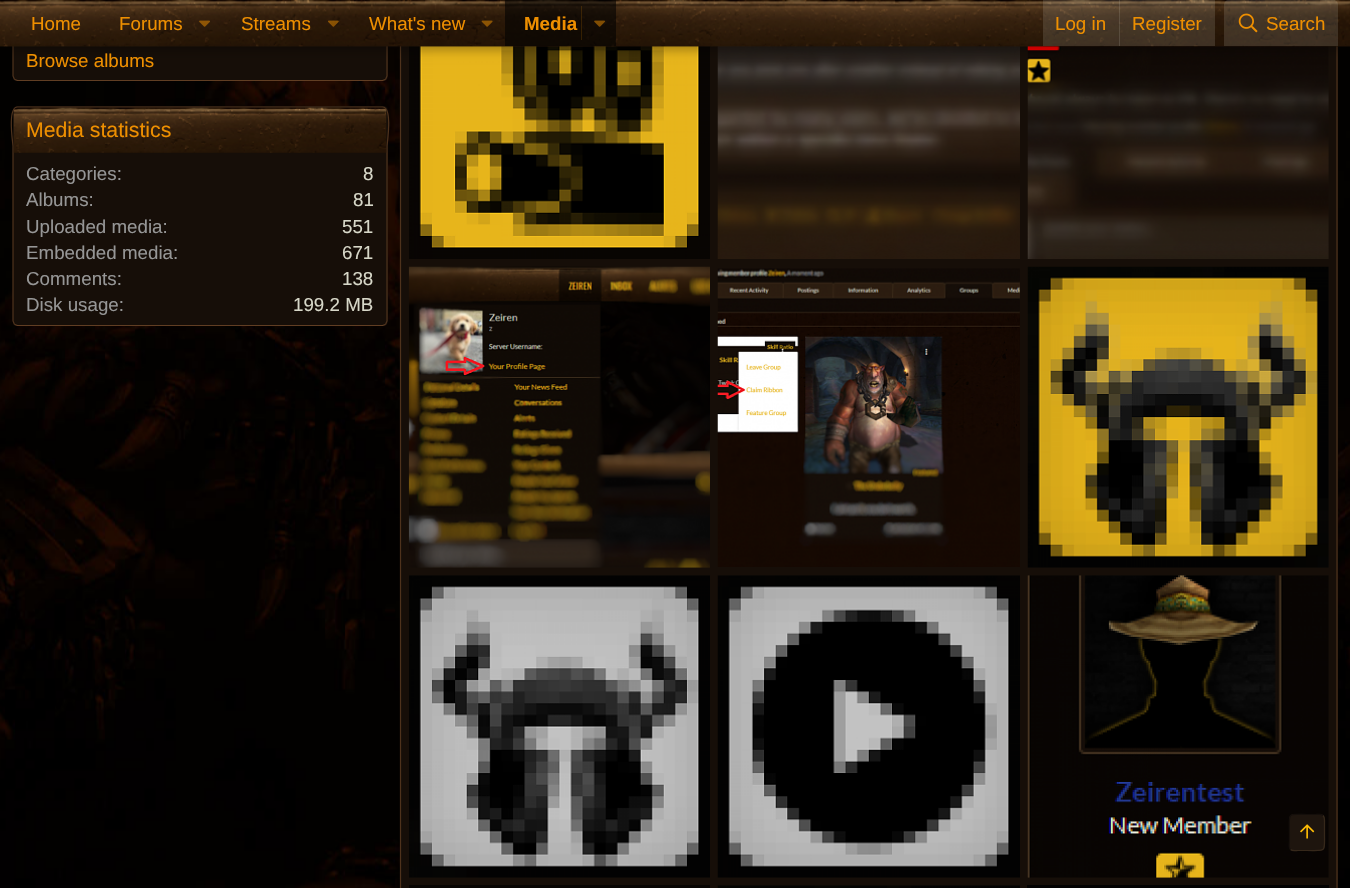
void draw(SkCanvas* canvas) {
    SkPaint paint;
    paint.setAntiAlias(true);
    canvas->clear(0xFFFFFFFF);
    canvas->drawImageRect(SkImages::DeferredFromEncodedData(SkData::MakeFromFileName("img1.png")), SkRect::MakeXYWH(0, 46, 1350, 842), SkSamplingOptions());
    paint.setColor(0xFF160E08);
    canvas->drawRoundRect(SkRect::MakeXYWH(13, -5, 375, 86), 5, 5, paint);
    paint.setStyle(SkPaint::kStroke_Style);
    paint.setStrokeWidth(1.2f);
    paint.setColor(0xFF613E23);
    canvas->drawPath(SkPathBuilder().moveTo(385.5f, 79.5f).lineTo(382.5f, 80.5f).lineTo(17.5f, 80.5f).lineTo(14.5f, 79.5f).detach(), paint);
    paint.setColor(0xFF4E321C);
    canvas->drawPath(SkPathBuilder().moveTo(14.5f, 79.5f).lineTo(13, 76).lineTo(13, -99).cubicTo(13, -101, 7, -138, 17.5f, -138).lineTo(382.5f, -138).cubicTo(393, -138, 387, -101, 387, -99).lineTo(387, 76).lineTo(385.5f, 79.5f).detach(), paint);
    paint.setStyle(SkPaint::kFill_Style);
    paint.setColor(0xFF160E08);
    canvas->drawRect(SkRect::MakeXYWH(401, 46, 937, 842), paint);
    paint.setStyle(SkPaint::kStroke_Style);
    paint.setColor(0xFF4E321C);
    canvas->drawPath(SkPathBuilder().moveTo(402, 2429.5f).cubicTo(401, 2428.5f, 400.5f, 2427.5f, 400.5f, 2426).lineTo(400.5f, -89).cubicTo(400.5f, -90, 401, -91, 402, -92).cubicTo(402.5f, -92.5f, 404, -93, 405, -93).lineTo(1332.5f, -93).cubicTo(1333.5f, -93, 1335, -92.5f, 1335.5f, -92).cubicTo(1336.5f, -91, 1337, -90, 1337, -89).lineTo(1337, 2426).cubicTo(1337, 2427.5f, 1336.5f, 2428.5f, 1335.5f, 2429.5f).detach(), paint);
    canvas->drawImageRect(SkImages::DeferredFromEncodedData(SkData::MakeFromFileName("img9.png")), SkRect::MakeXYWH(409, 46, 301, 213), SkSamplingOptions());
    canvas->drawImageRect(SkImages::DeferredFromEncodedData(SkData::MakeFromFileName("img10.png")), SkRect::MakeXYWH(717, 46, 303, 213), SkSamplingOptions());
    canvas->drawImageRect(SkImages::DeferredFromEncodedData(SkData::MakeFromFileName("img11.png")), SkRect::MakeXYWH(1027, 46, 302, 213), SkSamplingOptions());
    paint.setStyle(SkPaint::kFill_Style);
    paint.setColor(0x4D000000);
    paint.setMaskFilter(SkMaskFilter::MakeBlur(kNormal_SkBlurStyle, 5));
    canvas->drawRect(SkRect::MakeXYWH(-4, -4, 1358, 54), paint);
    paint.setMaskFilter(nullptr);
    canvas->drawImageRect(SkImages::DeferredFromEncodedData(SkData::MakeFromFileName("img2.png")), SkRect::MakeXYWH(0, 0, 1350, 47), SkSamplingOptions());
    SkFont font1(fontMgr->matchFamilyStyle("Liberation Sans", SkFontStyle::Normal()), 18.75f);
    font1.setSubpixel(true);
    paint.setColor(0xFFEE8F00);
    canvas->drawString("Home", 31, 30, font1, paint);
    canvas->drawString("Forums", 119, 30, font1, paint);
    canvas->drawImageRect(SkImages::DeferredFromEncodedData(SkData::MakeFromFileName("img3.png")), SkRect::MakeXYWH(199, 20, 11, 7), SkSamplingOptions());
    canvas->drawString("Streams", 241, 30, font1, paint);
    canvas->drawImageRect(SkImages::DeferredFromEncodedData(SkData::MakeFromFileName("img4.png")), SkRect::MakeXYWH(328, 20, 11, 7), SkSamplingOptions());
    canvas->drawString("What's new", 369, 30, font1, paint);
    canvas->drawImageRect(SkImages::DeferredFromEncodedData(SkData::MakeFromFileName("img5.png")), SkRect::MakeXYWH(481, 20, 12, 7), SkSamplingOptions());
    paint.setColor(0x96000000);
    canvas->drawRect(SkRect::MakeXYWH(505, 0, 111, 46), paint);
    SkFont font2(fontMgr->matchFamilyStyle("Liberation Sans", SkFontStyle::Bold()), 18.75f);
    font2.setSubpixel(true);
    paint.setColor(0xFFEE8F00);
    canvas->drawString("Media", 524, 30, font2, paint);
    paint.setColor(0x2BEE8F00);
    canvas->drawRect(SkRect::MakeXYWH(581, 6, 1, 34), paint);
    canvas->drawImageRect(SkImages::DeferredFromEncodedData(SkData::MakeFromFileName("img6.png")), SkRect::MakeXYWH(594, 20, 11, 7), SkSamplingOptions());
    paint.setColor(0x26D7D7C8);
    canvas->drawRect(SkRect::MakeXYWH(1043, 0, 172, 46), paint);
    paint.setColor(0xFFEE8F00);
    canvas->drawString("Log in", 1055, 30, font1, paint);
    paint.setColor(0x26D7D7C8);
    canvas->drawRect(SkRect::MakeXYWH(1119, 0, 1, 46), paint);
    paint.setColor(0xFFEE8F00);
    canvas->drawString("Register", 1132, 30, font1, paint);
    paint.setColor(0x26D7D7C8);
    canvas->drawPath(SkPathBuilder().moveTo(1229, 0).lineTo(1333, 0).cubicTo(1336, 0, 1338, 2, 1338, 5).lineTo(1338, 46).lineTo(1224, 46).lineTo(1224, 5).cubicTo(1224, 2, 1226, 0, 1229, 0).close().detach(), paint);
    canvas->drawImageRect(SkImages::DeferredFromEncodedData(SkData::MakeFromFileName("img7.png")), SkRect::MakeXYWH(1238, 13, 20, 20), SkSamplingOptions());
    paint.setColor(0xFFEE8F00);
    canvas->drawString("Search", 1266, 30, font1, paint);
    canvas->drawString("Browse albums", 26, 67, font1, paint);
    paint.setColor(0xFF160E08);
    canvas->drawRoundRect(SkRect::MakeXYWH(13, 106, 375, 220), 5, 5, paint);
    paint.setStyle(SkPaint::kStroke_Style);
    paint.setColor(0xFF613E23);
    canvas->drawPath(SkPathBuilder().moveTo(385.5f, 324.5f).lineTo(382.5f, 325.5f).lineTo(17.5f, 325.5f).lineTo(14.5f, 324.5f).detach(), paint);
    paint.setColor(0xFF4E321C);
    canvas->drawPath(SkPathBuilder().moveTo(14.5f, 324.5f).lineTo(13, 321).lineTo(13, 146).cubicTo(13, 144, 7, 107, 17.5f, 107).lineTo(382.5f, 107).cubicTo(393, 107, 387, 144, 387, 146).lineTo(387, 321).lineTo(385.5f, 324.5f).detach(), paint);
    canvas->drawImageRect(SkImages::DeferredFromEncodedData(SkData::MakeFromFileName("img8.png")), SkRect::MakeXYWH(13, 107, 374, 46), SkSamplingOptions());
    SkFont font3(fontMgr->matchFamilyStyle("Liberation Sans", SkFontStyle::Normal()), 21.25f);
    font3.setSubpixel(true);
    paint.setStyle(SkPaint::kFill_Style);
    paint.setColor(0xFFEE8F00);
    canvas->drawString("Media statistics", 26, 137, font3, paint);
    paint.setColor(0xFF969696);
    canvas->drawString("Categories:", 26, 180, font1, paint);
    paint.setColor(0xFFD7D7C8);
    canvas->drawString("8", 363, 180, font1, paint);
    paint.setColor(0xFF969696);
    canvas->drawString("Albums:", 26, 206, font1, paint);
    paint.setColor(0xFFD7D7C8);
    canvas->drawString("81", 353, 206, font1, paint);
    paint.setColor(0xFF969696);
    canvas->drawString("Uploaded media:", 26, 233, font1, paint);
    paint.setColor(0xFFD7D7C8);
    canvas->drawString("551", 342, 233, font1, paint);
    paint.setColor(0xFF969696);
    canvas->drawString("Embedded media:", 26, 259, font1, paint);
    paint.setColor(0xFFD7D7C8);
    canvas->drawString("671", 342, 259, font1, paint);
    paint.setColor(0xFF969696);
    canvas->drawString("Comments:", 26, 285, font1, paint);
    paint.setColor(0xFFD7D7C8);
    canvas->drawString("138", 342, 285, font1, paint);
    paint.setColor(0xFF969696);
    canvas->drawString("Disk usage:", 26, 311, font1, paint);
    paint.setColor(0xFFD7D7C8);
    canvas->drawString("199.2 MB", 293, 311, font1, paint);
    canvas->drawImageRect(SkImages::DeferredFromEncodedData(SkData::MakeFromFileName("img12.png")), SkRect::MakeXYWH(408, 266, 302, 302), SkSamplingOptions());
    canvas->drawImageRect(SkImages::DeferredFromEncodedData(SkData::MakeFromFileName("img13.png")), SkRect::MakeXYWH(717, 268, 303, 299), SkSamplingOptions());
    canvas->drawImageRect(SkImages::DeferredFromEncodedData(SkData::MakeFromFileName("img14.png")), SkRect::MakeXYWH(1027, 266, 302, 302), SkSamplingOptions());
    canvas->drawImageRect(SkImages::DeferredFromEncodedData(SkData::MakeFromFileName("img15.png")), SkRect::MakeXYWH(409, 575, 301, 303), SkSamplingOptions());
    canvas->drawImageRect(SkImages::DeferredFromEncodedData(SkData::MakeFromFileName("img16.png")), SkRect::MakeXYWH(717, 575, 303, 303), SkSamplingOptions());
    canvas->drawImageRect(SkImages::DeferredFromEncodedData(SkData::MakeFromFileName("img17.png")), SkRect::MakeXYWH(1027, 575, 302, 303), SkSamplingOptions());
    paint.setColor(0xFF080503);
    canvas->drawRect(SkRect::MakeXYWH(409, 885, 301, 3), paint);
    canvas->drawImageRect(SkImages::DeferredFromEncodedData(SkData::MakeFromFileName("img18.png")), SkRect::MakeXYWH(717, 885, 303, 3), SkSamplingOptions());
    paint.setColor(0xFF030202);
    canvas->drawRect(SkRect::MakeXYWH(1027, 885, 302, 3), paint);
    paint.setColor(0xFF1E150E);
    canvas->drawRoundRect(SkRect::MakeXYWH(1289, 814, 36, 37), 5, 5, paint);
    paint.setStyle(SkPaint::kStroke_Style);
    paint.setColor(0xFF36281A);
    canvas->drawPath(SkPathBuilder().moveTo(1323, 815.5f).cubicTo(1325, 817.5f, 1324.5f, 821, 1324.5f, 823.5f).lineTo(1324.5f, 832.5f).cubicTo(1324.5f, 853, 1327, 850.5f, 1307, 850.5f).lineTo(1298, 850.5f).cubicTo(1296, 850.5f, 1292.5f, 851.5f, 1290.5f, 849.5f).detach(), paint);
    paint.setColor(0xFF140E0A);
    canvas->drawPath(SkPathBuilder().moveTo(1290.5f, 849.5f).cubicTo(1288.5f, 847.5f, 1289.5f, 844, 1289.5f, 841.5f).lineTo(1289.5f, 832.5f).cubicTo(1289.5f, 812, 1286.5f, 814.5f, 1307, 814.5f).lineTo(1315.5f, 814.5f).cubicTo(1318, 814.5f, 1321, 813.5f, 1323, 815.5f).detach(), paint);
    canvas->drawImageRect(SkImages::DeferredFromEncodedData(SkData::MakeFromFileName("img19.png")), SkRect::MakeXYWH(1300, 824, 15, 15), SkSamplingOptions());
}
